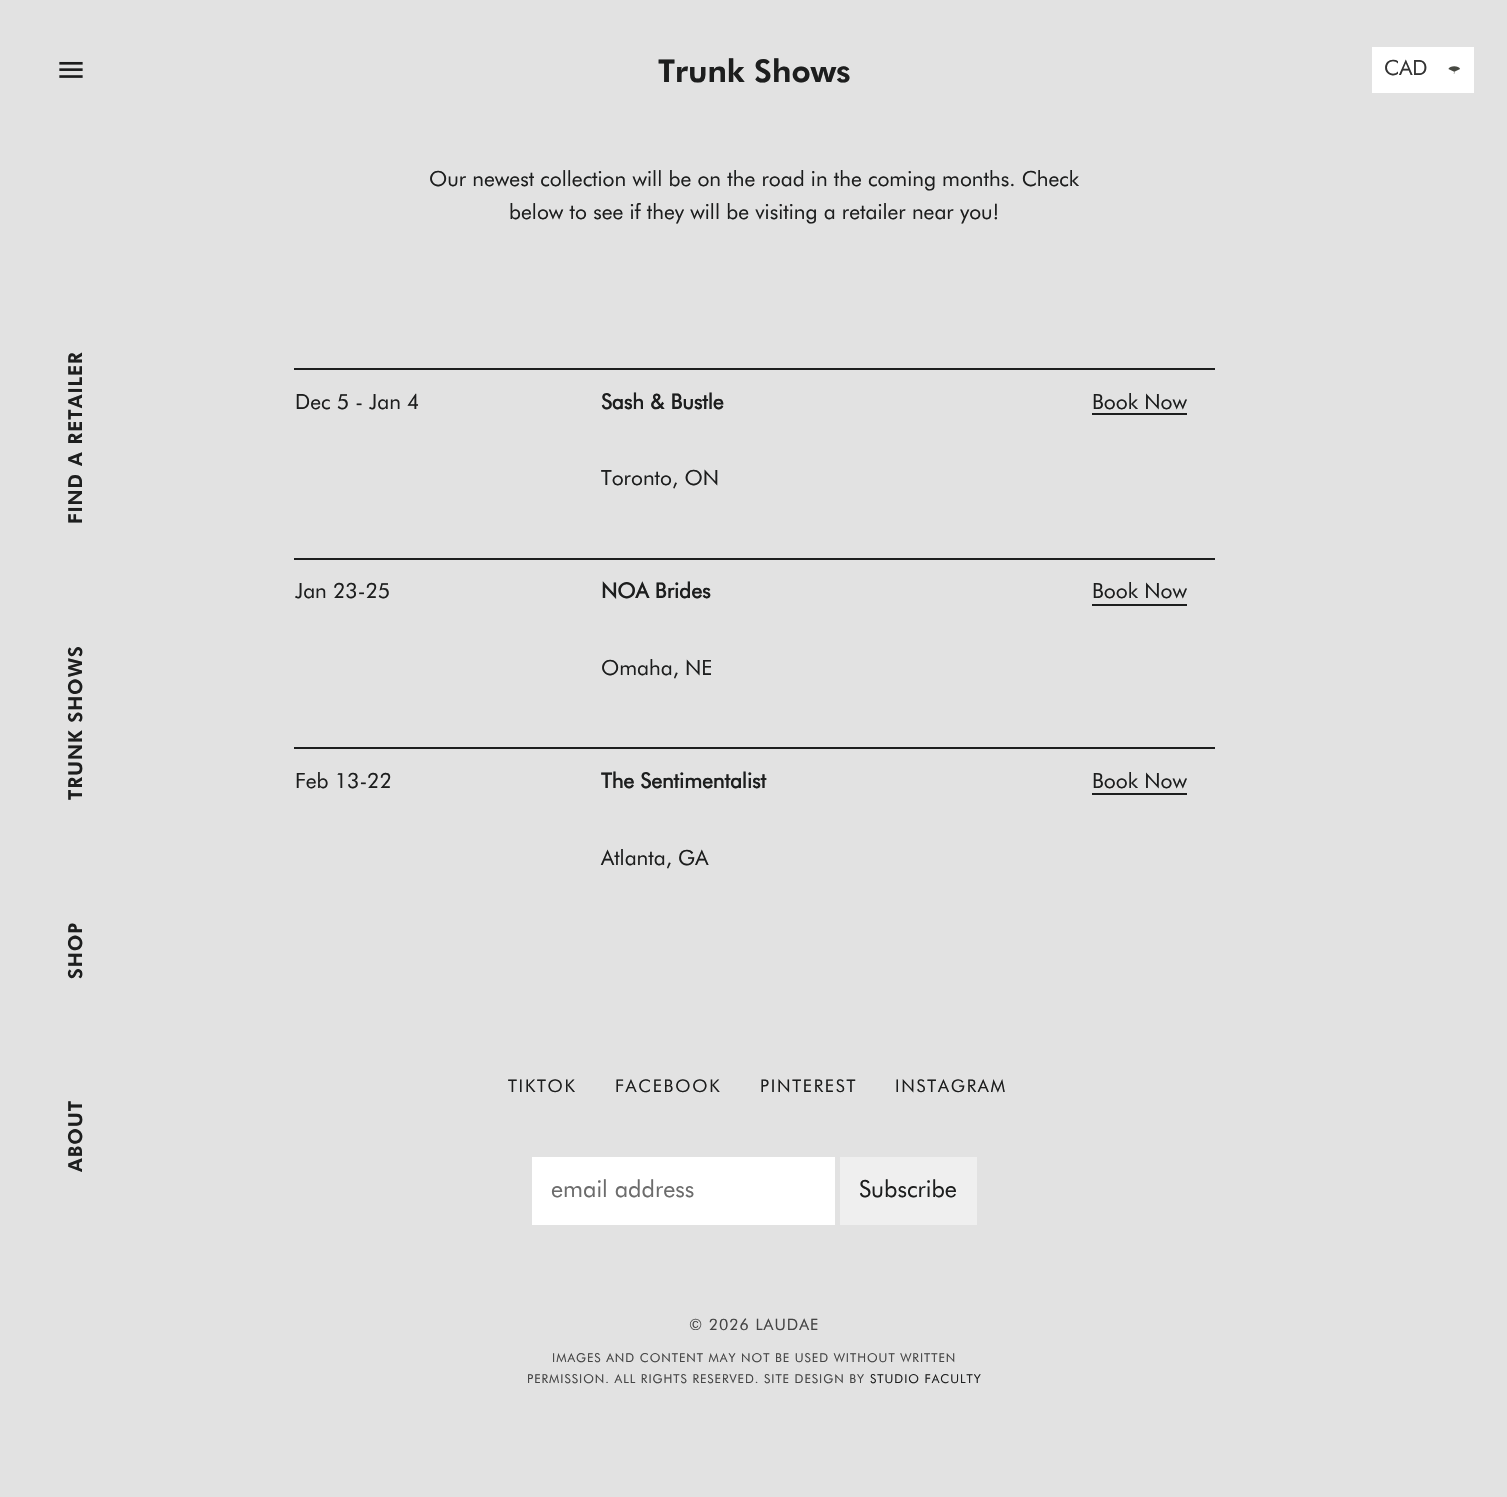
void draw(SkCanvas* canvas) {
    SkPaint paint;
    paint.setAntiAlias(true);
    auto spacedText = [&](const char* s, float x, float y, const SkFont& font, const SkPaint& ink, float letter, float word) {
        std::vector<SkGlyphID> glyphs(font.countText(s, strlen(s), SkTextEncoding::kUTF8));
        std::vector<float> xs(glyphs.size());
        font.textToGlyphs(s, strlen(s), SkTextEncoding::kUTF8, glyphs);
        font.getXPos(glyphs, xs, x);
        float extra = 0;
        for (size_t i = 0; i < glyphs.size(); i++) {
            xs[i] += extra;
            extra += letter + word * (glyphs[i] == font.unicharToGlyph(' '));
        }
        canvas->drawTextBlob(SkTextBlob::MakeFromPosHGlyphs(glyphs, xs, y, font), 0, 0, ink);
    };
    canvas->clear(0xFFE2E2E2);
    canvas->drawImageRect(SkImages::DeferredFromEncodedData(SkData::MakeFromFileName("img1.png")), SkRect::MakeXYWH(59, 61, 24, 17), SkSamplingOptions());
    SkFont font1(fontMgr->matchFamilyStyle("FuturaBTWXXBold", SkFontStyle::Normal()), 31.5f);
    font1.setSubpixel(true);
    paint.setColor(0xFF1D1E1E);
    canvas->drawString("Trunk Shows", 658, 82, font1, paint);
    SkFont font2(fontMgr->matchFamilyStyle("FuturaBTWXXBold", SkFontStyle::Normal()), 19.25f);
    font2.setSubpixel(true);
    canvas->save();
    canvas->rotate(-90, 82, 524);
    spacedText("FIND A RETAILER", 82, 524, font2, paint, 1, 0);
    canvas->restore();
    canvas->save();
    canvas->rotate(-90, 82, 800);
    spacedText("TRUNK SHOWS", 82, 800, font2, paint, 1, 0);
    canvas->restore();
    canvas->save();
    canvas->rotate(-90, 82, 979);
    spacedText("SHOP", 82, 979, font2, paint, 1, 0);
    canvas->restore();
    canvas->save();
    canvas->rotate(-90, 82, 1172);
    spacedText("ABOUT", 82, 1172, font2, paint, 1, 0);
    canvas->restore();
    SkFont font3(fontMgr->matchFamilyStyle("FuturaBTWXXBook", SkFontStyle::Normal()), 21);
    font3.setSubpixel(true);
    canvas->drawString("Our newest collection will be on the road in the coming months. Check", 429, 186, font3, paint);
    canvas->drawString("below to see if they will be visiting a retailer near you!", 509, 219, font3, paint);
    canvas->drawString("Dec 5 - Jan 4", 295, 409, font3, paint);
    SkFont font4(fontMgr->matchFamilyStyle("FuturaBTWXXBook", SkFontStyle::Bold()), 21);
    font4.setSubpixel(true);
    canvas->drawString("Sash & Bustle", 601, 409, font4, paint);
    canvas->drawString("Toronto, ON", 601, 485, font3, paint);
    canvas->drawRect(SkRect::MakeXYWH(294, 368, 921, 2), paint);
    canvas->drawString("Book Now", 1092, 409, font3, paint);
    canvas->drawRect(SkRect::MakeXYWH(1092, 413, 95, 2), paint);
    canvas->drawString("Jan 23-25", 295, 598, font3, paint);
    canvas->drawString("NOA Brides", 601, 598, font4, paint);
    canvas->drawString("Omaha, NE", 601, 675, font3, paint);
    canvas->drawRect(SkRect::MakeXYWH(294, 558, 921, 2), paint);
    canvas->drawString("Book Now", 1092, 598, font3, paint);
    canvas->drawRect(SkRect::MakeXYWH(1092, 604, 95, 2), paint);
    canvas->drawString("Feb 13-22", 295, 788, font3, paint);
    canvas->drawString("The Sentimentalist", 601, 788, font4, paint);
    canvas->drawString("Atlanta, GA", 601, 865, font3, paint);
    canvas->drawRect(SkRect::MakeXYWH(294, 747, 921, 2), paint);
    canvas->drawString("Book Now", 1092, 788, font3, paint);
    canvas->drawRect(SkRect::MakeXYWH(1092, 793, 95, 2), paint);
    SkFont font5(fontMgr->matchFamilyStyle("FuturaBTWXXBook", SkFontStyle::Normal()), 17.5f);
    font5.setSubpixel(true);
    spacedText("TIKTOK", 508, 1092, font5, paint, 1.75f, 0);
    spacedText("FACEBOOK", 615, 1092, font5, paint, 1.75f, 0);
    spacedText("PINTEREST", 760, 1092, font5, paint, 1.75f, 0);
    spacedText("INSTAGRAM", 895, 1092, font5, paint, 1.75f, 0);
    paint.setColor(0xFFFFFFFF);
    canvas->drawRect(SkRect::MakeXYWH(532, 1157, 303, 68), paint);
    SkFont font6(fontMgr->matchFamilyStyle("FuturaBTWXXBook", SkFontStyle::Normal()), 23.5f);
    font6.setSubpixel(true);
    paint.setColor(0xFF6C6C6C);
    canvas->drawString("email address", 551, 1197, font6, paint);
    paint.setColor(0xFFEFEFEF);
    canvas->drawRect(SkRect::MakeXYWH(840, 1157, 137, 68), paint);
    paint.setColor(0xFF1D1E1E);
    canvas->drawString("Subscribe", 859, 1197, font6, paint);
    SkFont font7(fontMgr->matchFamilyStyle("FuturaBTWXXBook", SkFontStyle::Normal()), 15.75f);
    font7.setSubpixel(true);
    paint.setColor(0xFF454545);
    spacedText("© 2026 LAUDAE", 689, 1330, font7, paint, 0.98f, 0);
    SkFont font8(fontMgr->matchFamilyStyle("FuturaBTWXXBook", SkFontStyle::Normal()), 12.25f);
    font8.setSubpixel(true);
    spacedText("IMAGES AND CONTENT MAY NOT BE USED WITHOUT WRITTEN", 552, 1362, font8, paint, 0.98f, 0);
    spacedText("PERMISSION. ALL RIGHTS RESERVED. SITE DESIGN BY", 527, 1383, font8, paint, 0.98f, 0);
    paint.setColor(0xFF1D1E1E);
    spacedText("STUDIO FACULTY", 870, 1383, font8, paint, 0.98f, 0);
    paint.setColor(0xFFFFFFFF);
    canvas->drawRect(SkRect::MakeXYWH(1372, 47, 102, 46), paint);
    paint.setColor(0xFF333333);
    canvas->drawString("CAD", 1384, 75, font3, paint);
    paint.setStyle(SkPaint::kStroke_Style);
    paint.setStrokeWidth(7);
    paint.setColor(0xFF474942);
    canvas->drawPath(SkPathBuilder().moveTo(1451.5f, 70.5f).cubicTo(1452, 69.5f, 1456.5f, 69.5f, 1457, 70.5f).detach(), paint);
}
